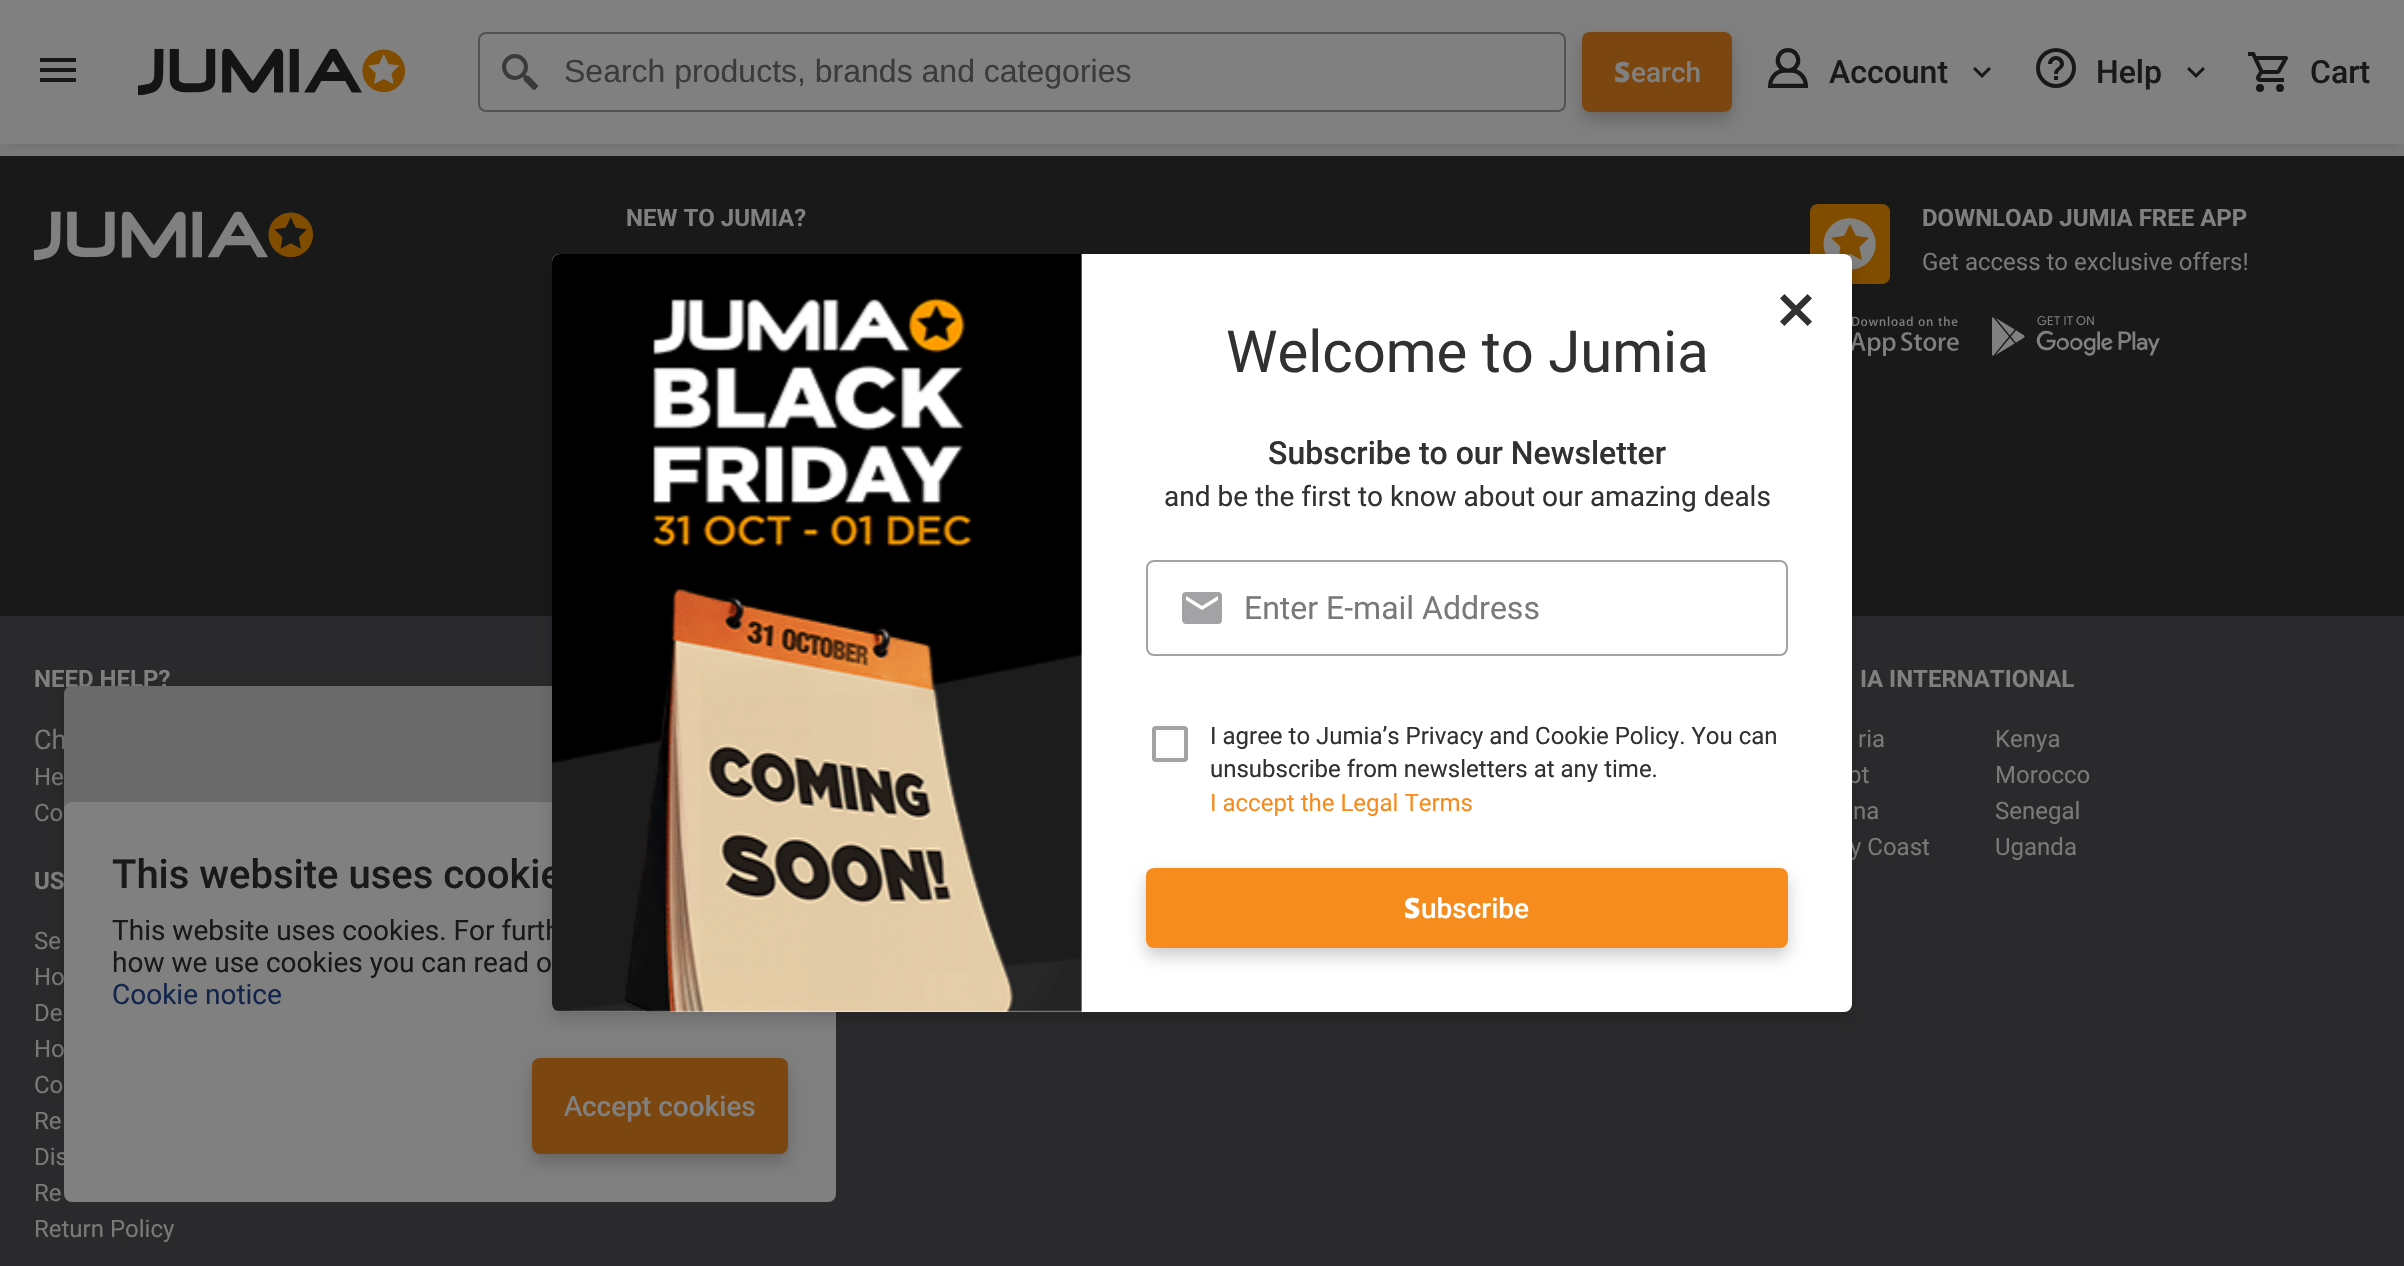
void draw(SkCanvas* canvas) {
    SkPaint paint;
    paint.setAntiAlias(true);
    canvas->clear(0xFF797979);
    paint.setColor(0xFF19191A);
    canvas->drawRect(SkRect::MakeXYWH(0, 156, 2404, 460), paint);
    paint.setColor(0x1F000000);
    paint.setMaskFilter(SkMaskFilter::MakeBlur(kNormal_SkBlurStyle, 4));
    canvas->drawRect(SkRect::MakeXYWH(8, 16, 2388, 128), paint);
    paint.setMaskFilter(nullptr);
    paint.setColor(0xFF808080);
    canvas->drawRect(SkRect::MakeXYWH(0, 0, 2404, 144), paint);
    canvas->drawImageRect(SkImages::DeferredFromEncodedData(SkData::MakeFromFileName("img1.png")), SkRect::MakeXYWH(40, 58, 36, 24), SkSamplingOptions());
    canvas->drawImageRect(SkImages::DeferredFromEncodedData(SkData::MakeFromFileName("img2.png")), SkRect::MakeXYWH(138, 48, 268, 48), SkSamplingOptions());
    paint.setStyle(SkPaint::kStroke_Style);
    paint.setStrokeWidth(2);
    paint.setColor(0xFF525253);
    canvas->drawRoundRect(SkRect::MakeXYWH(479, 33, 1086, 78), 7, 7, paint);
    canvas->drawImageRect(SkImages::DeferredFromEncodedData(SkData::MakeFromFileName("img3.png")), SkRect::MakeXYWH(502, 54, 36, 36), SkSamplingOptions());
    SkFont font1(fontMgr->matchFamilyStyle("Liberation Sans", SkFontStyle::Normal()), 32);
    font1.setSubpixel(true);
    paint.setStyle(SkPaint::kFill_Style);
    paint.setColor(0xFF3B3B3D);
    canvas->drawString("Search products, brands and categories", 564, 82, font1, paint);
    paint.setColor(0x33000000);
    paint.setMaskFilter(SkMaskFilter::MakeBlur(kNormal_SkBlurStyle, 8));
    canvas->drawRoundRect(SkRect::MakeXYWH(1582, 40, 150, 80), 8, 8, paint);
    paint.setMaskFilter(nullptr);
    paint.setColor(0xFF7B460F);
    canvas->drawRoundRect(SkRect::MakeXYWH(1582, 32, 150, 80), 8, 8, paint);
    SkFont font2(fontMgr->matchFamilyStyle("Noto Sans", SkFontStyle(900, SkFontStyle::kNormal_Width, SkFontStyle::kUpright_Slant)), 28);
    font2.setSubpixel(true);
    paint.setColor(0xFF808080);
    canvas->drawString("S", 1614, 82, font2, paint);
    SkFont font3(fontMgr->matchFamilyStyle("Roboto", SkFontStyle(500, SkFontStyle::kNormal_Width, SkFontStyle::kUpright_Slant)), 28);
    font3.setSubpixel(true);
    canvas->drawString("earch", 1631, 82, font3, paint);
    canvas->drawImageRect(SkImages::DeferredFromEncodedData(SkData::MakeFromFileName("img4.png")), SkRect::MakeXYWH(1768, 48, 40, 40), SkSamplingOptions());
    SkFont font4(fontMgr->matchFamilyStyle("Roboto", SkFontStyle(500, SkFontStyle::kNormal_Width, SkFontStyle::kUpright_Slant)), 32);
    font4.setSubpixel(true);
    paint.setColor(0xFF19191A);
    canvas->drawString("Account", 1829, 83, font4, paint);
    canvas->drawImageRect(SkImages::DeferredFromEncodedData(SkData::MakeFromFileName("img5.png")), SkRect::MakeXYWH(1973, 67, 18, 11), SkSamplingOptions());
    canvas->drawImageRect(SkImages::DeferredFromEncodedData(SkData::MakeFromFileName("img6.png")), SkRect::MakeXYWH(2036, 48, 40, 40), SkSamplingOptions());
    canvas->drawString("Help", 2096, 83, font4, paint);
    canvas->drawImageRect(SkImages::DeferredFromEncodedData(SkData::MakeFromFileName("img5.png")), SkRect::MakeXYWH(2187, 67, 18, 11), SkSamplingOptions());
    canvas->drawImageRect(SkImages::DeferredFromEncodedData(SkData::MakeFromFileName("img7.png")), SkRect::MakeXYWH(2248, 52, 40, 40), SkSamplingOptions());
    canvas->drawString("Cart", 2310, 83, font4, paint);
    paint.setColor(0xFF2A2A2C);
    canvas->drawRect(SkRect::MakeXYWH(0, 616, 2404, 650), paint);
    canvas->drawImageRect(SkImages::DeferredFromEncodedData(SkData::MakeFromFileName("img8.png")), SkRect::MakeXYWH(34, 211, 280, 50), SkSamplingOptions());
    SkFont font5(fontMgr->matchFamilyStyle("Roboto", SkFontStyle::Bold()), 24);
    font5.setSubpixel(true);
    paint.setColor(0xFF808080);
    canvas->drawString("NEW TO JUMIA?", 626, 226, font5, paint);
    canvas->drawImageRect(SkImages::DeferredFromEncodedData(SkData::MakeFromFileName("img9.png")), SkRect::MakeXYWH(1810, 204, 80, 80), SkSamplingOptions());
    canvas->drawString("DOWNLOAD JUMIA FREE APP", 1922, 226, font5, paint);
    SkFont font6(fontMgr->matchFamilyStyle("Roboto", SkFontStyle::Normal()), 24);
    font6.setSubpixel(true);
    paint.setColor(0xFF797979);
    canvas->drawString("Get access to exclusive offers!", 1922, 270, font6, paint);
    canvas->drawImageRect(SkImages::DeferredFromEncodedData(SkData::MakeFromFileName("img10.png")), SkRect::MakeXYWH(1852, 316, 107, 40), SkSamplingOptions());
    canvas->drawImageRect(SkImages::DeferredFromEncodedData(SkData::MakeFromFileName("img11.png")), SkRect::MakeXYWH(1992, 316, 168, 40), SkSamplingOptions());
    paint.setColor(0xFF808080);
    canvas->drawString("NEED HELP?", 34, 687, font5, paint);
    SkFont font7(fontMgr->matchFamilyStyle("Roboto", SkFontStyle::Normal()), 27);
    font7.setSubpixel(true);
    paint.setColor(0xFF797979);
    canvas->drawString("Ch", 34, 749, font7, paint);
    canvas->drawString("He", 34, 785, font6, paint);
    canvas->drawString("Co", 34, 821, font6, paint);
    paint.setColor(0xFF808080);
    canvas->drawString("US", 34, 889, font5, paint);
    paint.setColor(0xFF797979);
    canvas->drawString("Se", 34, 949, font6, paint);
    canvas->drawString("Ho", 34, 985, font6, paint);
    canvas->drawString("De", 34, 1021, font6, paint);
    canvas->drawString("Ho", 34, 1057, font6, paint);
    canvas->drawString("Co", 34, 1093, font6, paint);
    canvas->drawString("Re", 34, 1129, font6, paint);
    canvas->drawString("Dis", 34, 1165, font6, paint);
    canvas->drawString("Re", 34, 1201, font6, paint);
    canvas->drawString("Return Policy", 34, 1237, font6, paint);
    paint.setColor(0xFF808080);
    canvas->drawString("IA INTERNATIONAL", 1860, 687, font5, paint);
    paint.setColor(0xFF797979);
    canvas->drawString("ria", 1858, 747, font6, paint);
    canvas->drawString("pt", 1848, 783, font6, paint);
    canvas->drawString("na", 1853, 819, font6, paint);
    canvas->drawString("y Coast", 1850, 855, font6, paint);
    canvas->drawString("Kenya", 1995, 747, font6, paint);
    canvas->drawString("Morocco", 1995, 783, font6, paint);
    canvas->drawString("Senegal", 1995, 819, font6, paint);
    canvas->drawString("Uganda", 1995, 855, font6, paint);
    paint.setColor(0x26000000);
    paint.setMaskFilter(SkMaskFilter::MakeBlur(kNormal_SkBlurStyle, 7));
    canvas->drawRoundRect(SkRect::MakeXYWH(62, 688, 644, 404), 10, 10, paint);
    paint.setMaskFilter(nullptr);
    paint.setColor(0xFF6A6A6B);
    canvas->drawRoundRect(SkRect::MakeXYWH(64, 686, 640, 400), 8, 8, paint);
    paint.setColor(0xFF808080);
    canvas->drawRoundRect(SkRect::MakeXYWH(64, 802, 772, 400), 8, 8, paint);
    paint.setColor(0x26000000);
    paint.setMaskFilter(SkMaskFilter::MakeBlur(kNormal_SkBlurStyle, 8));
    canvas->drawRoundRect(SkRect::MakeXYWH(552, 262, 1300, 758), 8, 8, paint);
    paint.setMaskFilter(nullptr);
    SkFont font8(fontMgr->matchFamilyStyle("Roboto", SkFontStyle(500, SkFontStyle::kNormal_Width, SkFontStyle::kUpright_Slant)), 40);
    font8.setSubpixel(true);
    paint.setColor(0xFF19191A);
    canvas->drawString("This website uses cookie", 112, 888, font8, paint);
    SkFont font9(fontMgr->matchFamilyStyle("Roboto", SkFontStyle::Normal()), 28);
    font9.setSubpixel(true);
    canvas->drawString("This website uses cookies. For furth", 112, 940, font9, paint);
    paint.setColor(0xFFFFFFFF);
    canvas->drawRoundRect(SkRect::MakeXYWH(552, 254, 1300, 758), 8, 8, paint);
    canvas->drawImageRect(SkImages::DeferredFromEncodedData(SkData::MakeFromFileName("img12.png")), SkRect::MakeXYWH(1780, 294, 32, 32), SkSamplingOptions());
    canvas->drawImageRect(SkImages::DeferredFromEncodedData(SkData::MakeFromFileName("img13.png")), SkRect::MakeXYWH(552, 254, 530, 758), SkSamplingOptions());
    SkFont font10(fontMgr->matchFamilyStyle("Roboto", SkFontStyle::Normal()), 58);
    font10.setSubpixel(true);
    paint.setColor(0xFF313133);
    canvas->drawString("Welcome to Jumia", 1226, 372, font10, paint);
    canvas->drawString("Subscribe to our Newsletter", 1268, 464, font4, paint);
    canvas->drawString("and be the first to know about our amazing deals", 1164, 506, font9, paint);
    paint.setStyle(SkPaint::kStroke_Style);
    paint.setColor(0xFFA3A3A6);
    canvas->drawRoundRect(SkRect::MakeXYWH(1147, 561, 640, 94), 7, 7, paint);
    canvas->drawImageRect(SkImages::DeferredFromEncodedData(SkData::MakeFromFileName("img14.png")), SkRect::MakeXYWH(1182, 592, 40, 32), SkSamplingOptions());
    SkFont font11(fontMgr->matchFamilyStyle("Roboto", SkFontStyle::Normal()), 32);
    font11.setSubpixel(true);
    paint.setStyle(SkPaint::kFill_Style);
    paint.setColor(0xFF797979);
    canvas->drawString("Enter E-mail Address", 1244, 619, font11, paint);
    paint.setStyle(SkPaint::kStroke_Style);
    paint.setStrokeWidth(4);
    paint.setColor(0xFFA3A3A6);
    canvas->drawRoundRect(SkRect::MakeXYWH(1154, 728, 32, 32), 2, 2, paint);
    paint.setStyle(SkPaint::kFill_Style);
    paint.setColor(0xFF313133);
    canvas->drawString("I agree to Jumia’s Privacy and Cookie Policy. You can", 1210, 744, font6, paint);
    canvas->drawString("unsubscribe from newsletters at any time.", 1210, 777, font6, paint);
    paint.setColor(0xFFF68B1E);
    canvas->drawString("I accept the Legal Terms", 1210, 811, font6, paint);
    paint.setColor(0x33000000);
    paint.setMaskFilter(SkMaskFilter::MakeBlur(kNormal_SkBlurStyle, 8));
    canvas->drawRoundRect(SkRect::MakeXYWH(1146, 876, 642, 80), 8, 8, paint);
    paint.setMaskFilter(nullptr);
    paint.setColor(0xFFF68B1E);
    canvas->drawRoundRect(SkRect::MakeXYWH(1146, 868, 642, 80), 8, 8, paint);
    paint.setColor(0xFFFFFFFF);
    canvas->drawString("S", 1404, 918, font2, paint);
    canvas->drawString("ubscribe", 1421, 918, font3, paint);
    paint.setColor(0xFF19191A);
    canvas->drawString("how we use cookies you can read o", 112, 972, font9, paint);
    paint.setColor(0xFF13254B);
    canvas->drawString("Cookie notice", 112, 1004, font9, paint);
    paint.setColor(0x33000000);
    paint.setMaskFilter(SkMaskFilter::MakeBlur(kNormal_SkBlurStyle, 8));
    canvas->drawRoundRect(SkRect::MakeXYWH(532, 1066, 256, 96), 8, 8, paint);
    paint.setMaskFilter(nullptr);
    paint.setColor(0xFF7B460F);
    canvas->drawRoundRect(SkRect::MakeXYWH(532, 1058, 256, 96), 8, 8, paint);
    SkFont font12(fontMgr->matchFamilyStyle("Noto Sans", SkFontStyle(500, SkFontStyle::kNormal_Width, SkFontStyle::kUpright_Slant)), 28);
    font12.setSubpixel(true);
    paint.setColor(0xFF808080);
    canvas->drawString("A", 564, 1116, font12, paint);
    canvas->drawString("ccept cookies", 582, 1116, font3, paint);
}
